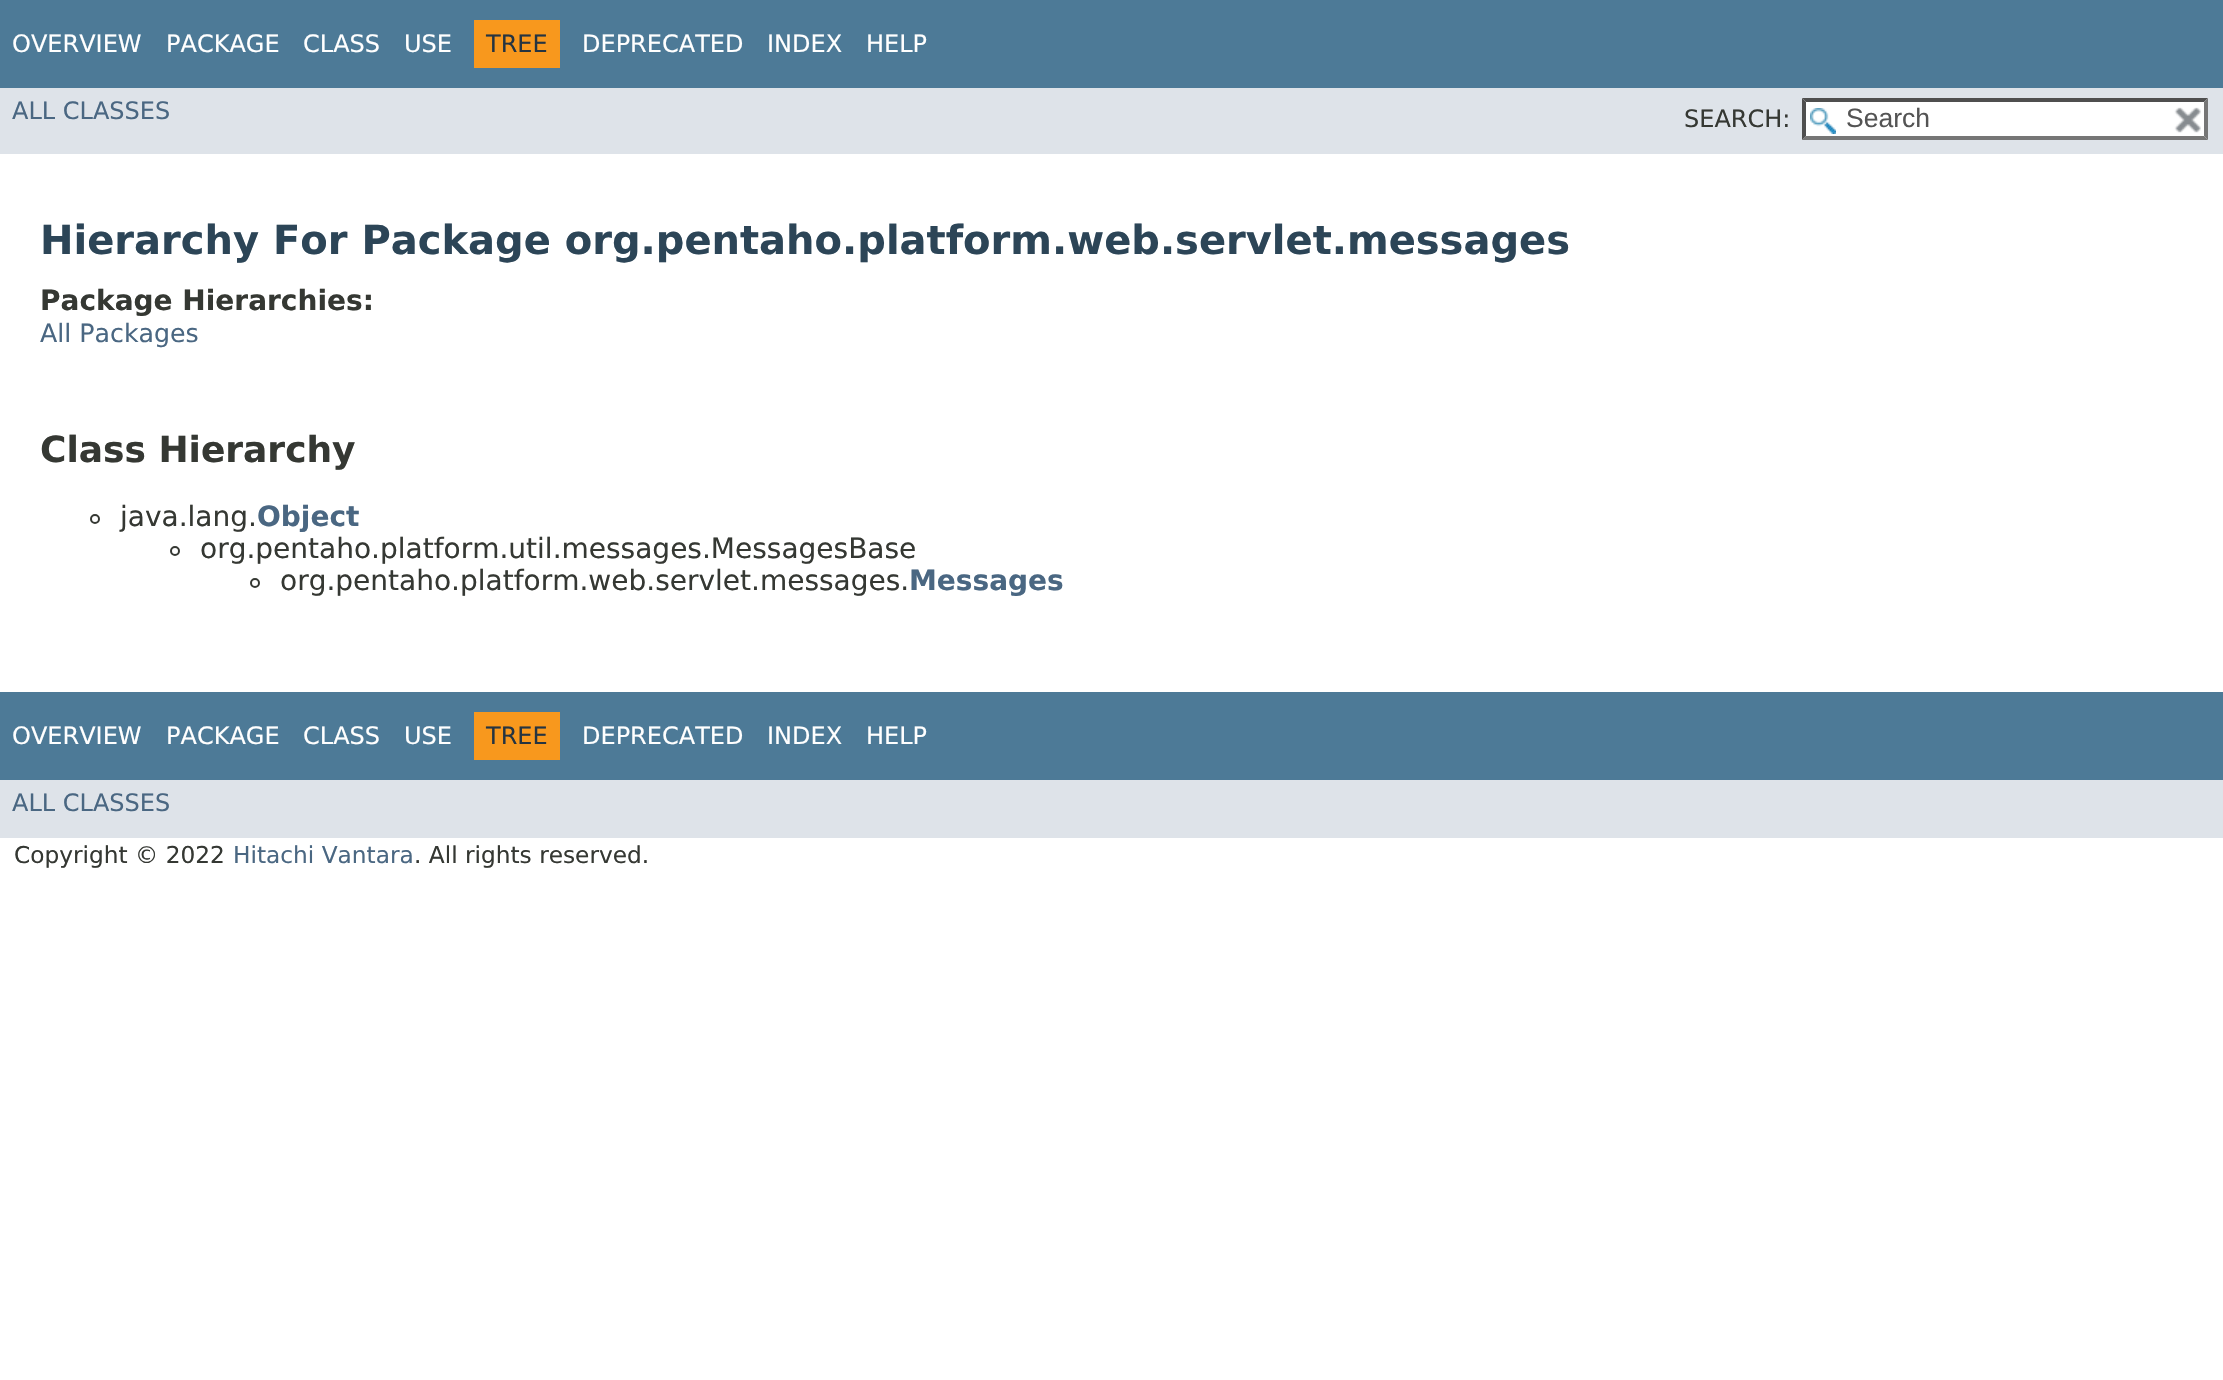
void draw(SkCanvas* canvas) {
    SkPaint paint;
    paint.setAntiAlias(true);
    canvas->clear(0xFFFFFFFF);
    paint.setColor(0xFF4D7A97);
    canvas->drawRect(SkRect::MakeXYWH(0, 0, 2223, 88), paint);
    SkFont font1(fontMgr->matchFamilyStyle("DejaVu Sans", SkFontStyle::Normal()), 24);
    font1.setSubpixel(true);
    paint.setColor(0xFFFFFFFF);
    canvas->drawString("OVERVIEW", 12, 52, font1, paint);
    canvas->drawString("PACKAGE", 166, 52, font1, paint);
    canvas->drawString("CLASS", 303, 52, font1, paint);
    canvas->drawString("USE", 404, 52, font1, paint);
    paint.setColor(0xFFF8981D);
    canvas->drawRect(SkRect::MakeXYWH(474, 20, 86, 48), paint);
    paint.setColor(0xFF253441);
    canvas->drawString("TREE", 486, 52, font1, paint);
    paint.setColor(0xFFFFFFFF);
    canvas->drawString("DEPRECATED", 582, 52, font1, paint);
    canvas->drawString("INDEX", 767, 52, font1, paint);
    canvas->drawString("HELP", 866, 52, font1, paint);
    paint.setColor(0xFFDEE3E9);
    canvas->drawRect(SkRect::MakeXYWH(0, 88, 2223, 66), paint);
    paint.setColor(0xFF4A6782);
    canvas->drawString("ALL CLASSES", 12, 119, font1, paint);
    paint.setColor(0xFF353833);
    canvas->drawString("SEARCH:", 1684, 127, font1, paint);
    paint.setColor(0xFFFFFFFF);
    canvas->drawRect(SkRect::MakeXYWH(1802, 98, 406, 42), paint);
    canvas->drawImageRect(SkImages::DeferredFromEncodedData(SkData::MakeFromFileName("img1.png")), SkRect::MakeXYWH(1810, 108, 26, 26), SkSamplingOptions());
    paint.setColor(0xFF4F4F4F);
    canvas->drawPath(SkPathBuilder().moveTo(1802, 98).lineTo(2208, 98).lineTo(2204, 102).lineTo(1806, 102).close().detach(), paint);
    paint.setColor(0xFF767676);
    canvas->drawPath(SkPathBuilder().moveTo(2208, 98).lineTo(2208, 140).lineTo(2204, 136).lineTo(2204, 102).close().detach(), paint);
    canvas->drawPath(SkPathBuilder().moveTo(2208, 140).lineTo(1802, 140).lineTo(1806, 136).lineTo(2204, 136).close().detach(), paint);
    paint.setColor(0xFF4F4F4F);
    canvas->drawPath(SkPathBuilder().moveTo(1802, 140).lineTo(1802, 98).lineTo(1806, 102).lineTo(1806, 136).close().detach(), paint);
    SkFont font2(fontMgr->matchFamilyStyle("Liberation Sans", SkFontStyle::Normal()), 26.5f);
    font2.setSubpixel(true);
    paint.setColor(0xFF545454);
    canvas->drawString("Search", 1846, 127, font2, paint);
    canvas->drawImageRect(SkImages::DeferredFromEncodedData(SkData::MakeFromFileName("img2.png")), SkRect::MakeXYWH(2174, 107, 27, 26), SkSamplingOptions());
    SkFont font3(fontMgr->matchFamilyStyle("DejaVu Sans", SkFontStyle::Bold()), 40);
    font3.setSubpixel(true);
    paint.setColor(0xFF2C4557);
    canvas->drawString("Hierarchy For Package org.pentaho.platform.web.servlet.messages", 40, 254, font3, paint);
    SkFont font4(fontMgr->matchFamilyStyle("DejaVu Sans", SkFontStyle::Bold()), 28);
    font4.setSubpixel(true);
    paint.setColor(0xFF353833);
    canvas->drawString("Package Hierarchies:", 40, 310, font4, paint);
    SkFont font5(fontMgr->matchFamilyStyle("DejaVu Sans", SkFontStyle::Normal()), 25.25f);
    font5.setSubpixel(true);
    paint.setColor(0xFF4A6782);
    canvas->drawString("All Packages", 40, 342, font5, paint);
    SkFont font6(fontMgr->matchFamilyStyle("DejaVu Sans", SkFontStyle::Bold()), 36);
    font6.setSubpixel(true);
    paint.setColor(0xFF353833);
    canvas->drawString("Class Hierarchy", 40, 462, font6, paint);
    paint.setStyle(SkPaint::kStroke_Style);
    paint.setStrokeWidth(2);
    canvas->drawCircle(95, 519, 4, paint);
    SkFont font7(fontMgr->matchFamilyStyle("DejaVu Sans", SkFontStyle::Normal()), 28);
    font7.setSubpixel(true);
    paint.setStyle(SkPaint::kFill_Style);
    canvas->drawString("java.lang.", 120, 526, font7, paint);
    paint.setColor(0xFF4A6782);
    canvas->drawString("Object", 257, 526, font4, paint);
    paint.setStyle(SkPaint::kStroke_Style);
    paint.setColor(0xFF353833);
    canvas->drawCircle(175, 551, 4, paint);
    paint.setStyle(SkPaint::kFill_Style);
    canvas->drawString("org.pentaho.platform.util.messages.MessagesBase", 200, 558, font7, paint);
    paint.setStyle(SkPaint::kStroke_Style);
    canvas->drawCircle(255, 583, 4, paint);
    paint.setStyle(SkPaint::kFill_Style);
    canvas->drawString("org.pentaho.platform.web.servlet.messages.", 280, 590, font7, paint);
    paint.setColor(0xFF4A6782);
    canvas->drawString("Messages", 909, 590, font4, paint);
    paint.setColor(0xFF4D7A97);
    canvas->drawRect(SkRect::MakeXYWH(0, 692, 2223, 88), paint);
    paint.setColor(0xFFFFFFFF);
    canvas->drawString("OVERVIEW", 12, 744, font1, paint);
    canvas->drawString("PACKAGE", 166, 744, font1, paint);
    canvas->drawString("CLASS", 303, 744, font1, paint);
    canvas->drawString("USE", 404, 744, font1, paint);
    paint.setColor(0xFFF8981D);
    canvas->drawRect(SkRect::MakeXYWH(474, 712, 86, 48), paint);
    paint.setColor(0xFF253441);
    canvas->drawString("TREE", 486, 744, font1, paint);
    paint.setColor(0xFFFFFFFF);
    canvas->drawString("DEPRECATED", 582, 744, font1, paint);
    canvas->drawString("INDEX", 767, 744, font1, paint);
    canvas->drawString("HELP", 866, 744, font1, paint);
    paint.setColor(0xFFDEE3E9);
    canvas->drawRect(SkRect::MakeXYWH(0, 780, 2223, 58), paint);
    paint.setColor(0xFF4A6782);
    canvas->drawString("ALL CLASSES", 12, 811, font1, paint);
    SkFont font8(fontMgr->matchFamilyStyle("DejaVu Sans", SkFontStyle::Normal()), 23.25f);
    font8.setSubpixel(true);
    paint.setColor(0xFF353833);
    canvas->drawString("Copyright © 2022", 14, 863, font8, paint);
    paint.setColor(0xFF4A6782);
    canvas->drawString("Hitachi Vantara", 233, 863, font8, paint);
    paint.setColor(0xFF353833);
    canvas->drawString(". All rights reserved.", 414, 863, font8, paint);
}
